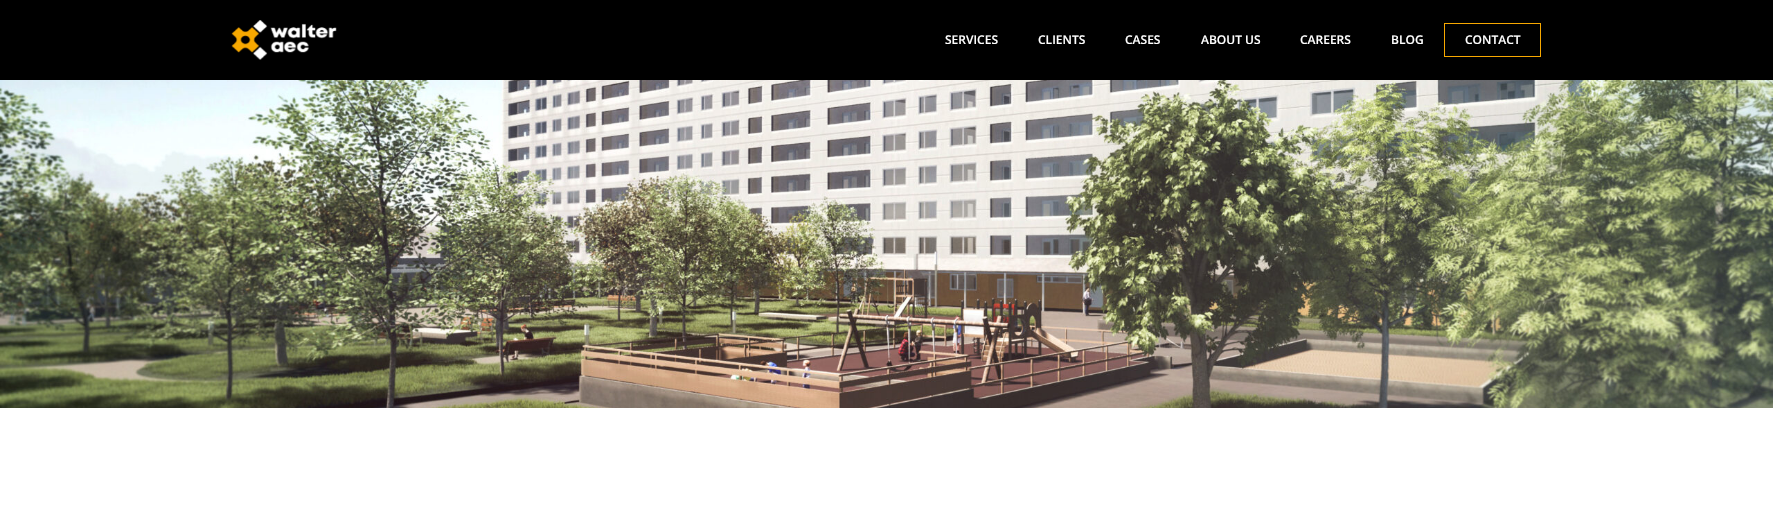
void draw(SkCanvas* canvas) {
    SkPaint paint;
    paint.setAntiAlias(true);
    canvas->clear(0xFFFFFFFF);
    paint.setColor(0xFF000000);
    canvas->drawRect(SkRect::MakeXYWH(0, 0, 1773, 80), paint);
    canvas->drawImageRect(SkImages::DeferredFromEncodedData(SkData::MakeFromFileName("img1.png")), SkRect::MakeXYWH(231, 20, 106, 40), SkSamplingOptions());
    SkFont font1(fontMgr->matchFamilyStyle("Open Sans", SkFontStyle(600, SkFontStyle::kNormal_Width, SkFontStyle::kUpright_Slant)), 12);
    font1.setSubpixel(true);
    paint.setColor(0xFFFFFFFF);
    canvas->drawString("SERVICES", 945, 44, font1, paint);
    canvas->drawString("CLIENTS", 1038, 44, font1, paint);
    canvas->drawString("CASES", 1125, 44, font1, paint);
    canvas->drawString("ABOUT US", 1201, 44, font1, paint);
    canvas->drawString("CAREERS", 1300, 44, font1, paint);
    canvas->drawString("BLOG", 1391, 44, font1, paint);
    paint.setStyle(SkPaint::kStroke_Style);
    paint.setStrokeWidth(1);
    paint.setColor(0xFFF7A800);
    canvas->drawRect(SkRect::MakeXYWH(1444.5f, 23.5f, 96, 33), paint);
    paint.setStyle(SkPaint::kFill_Style);
    paint.setColor(0xFFFFFFFF);
    canvas->drawString("CONTACT", 1465, 44, font1, paint);
    canvas->drawImageRect(SkImages::DeferredFromEncodedData(SkData::MakeFromFileName("img2.png")), SkRect::MakeXYWH(0, 80, 1773, 328), SkSamplingOptions());
}
